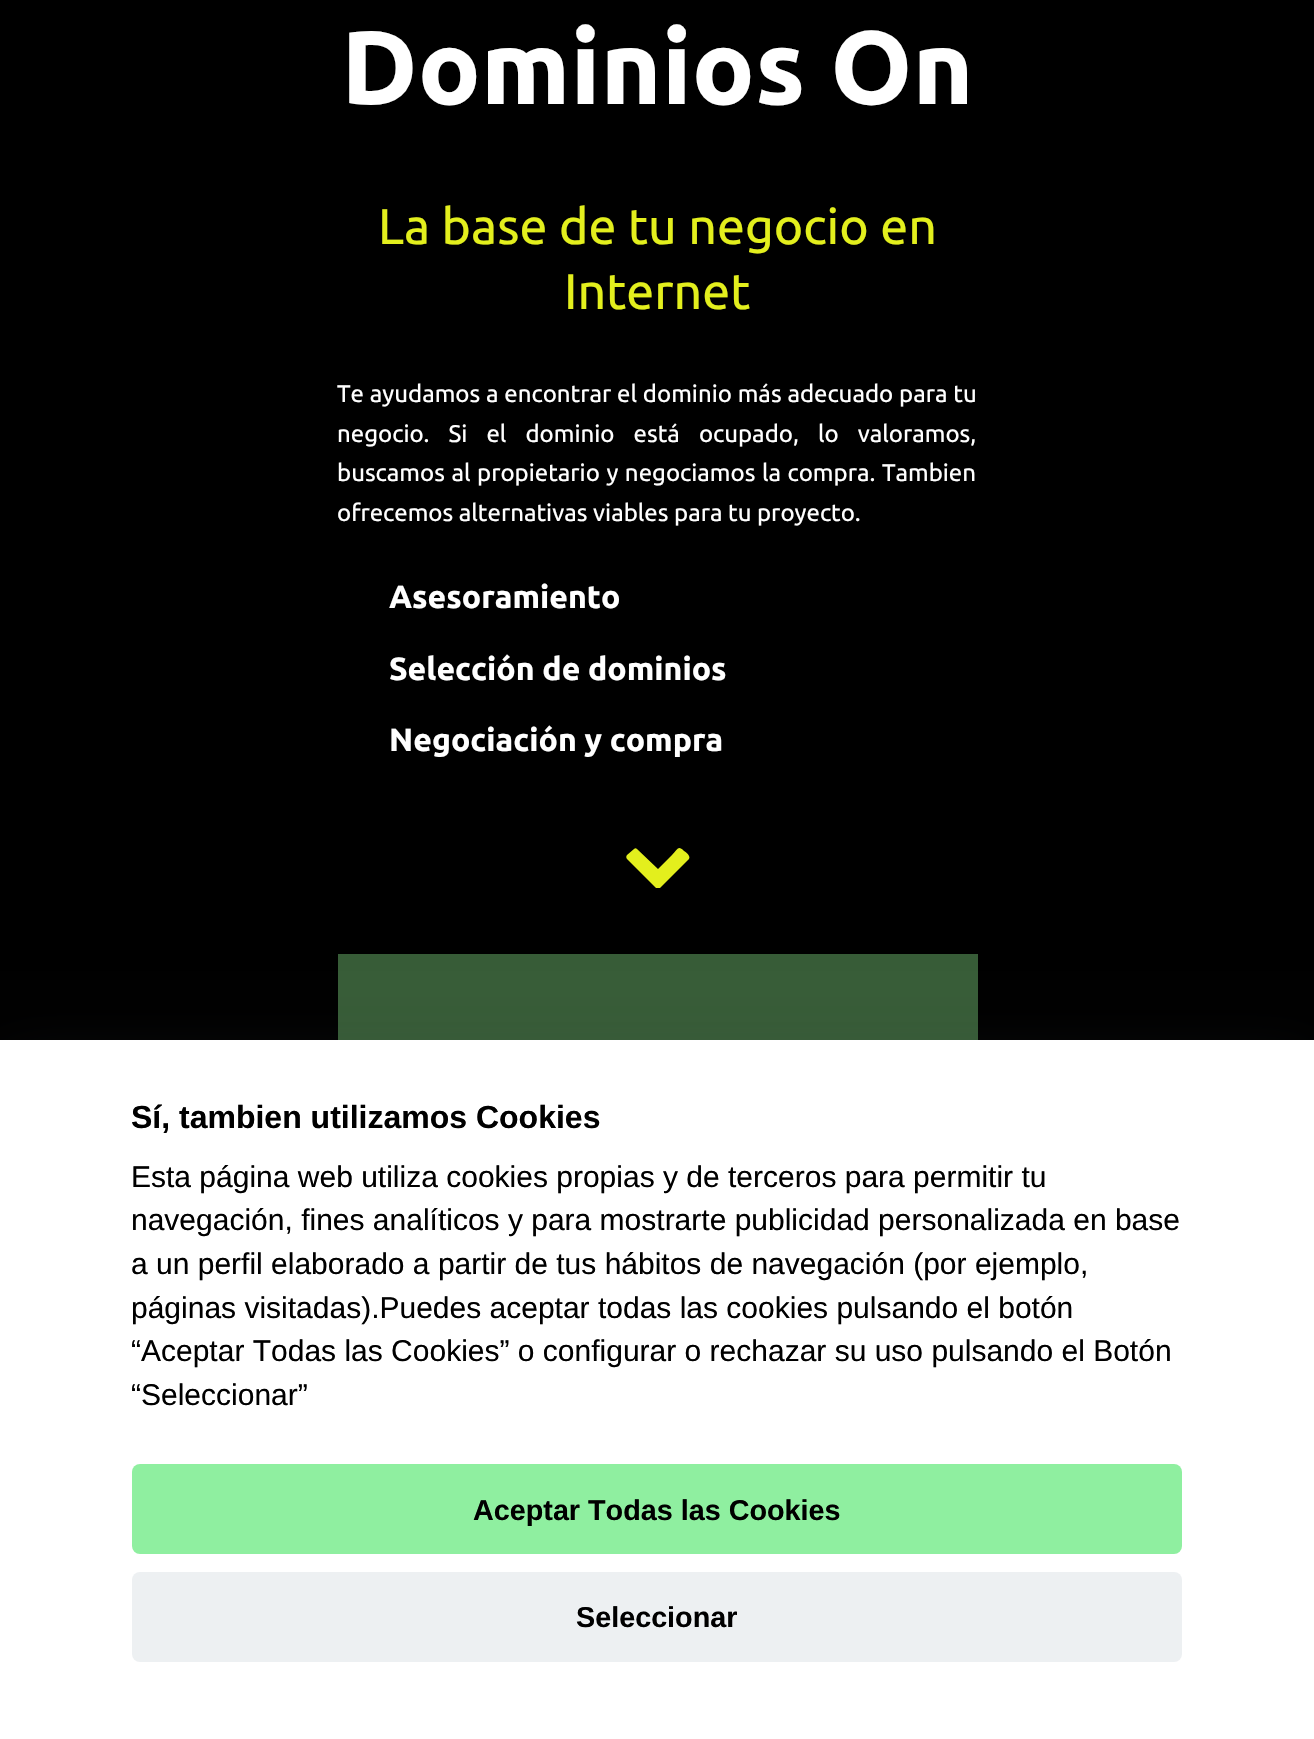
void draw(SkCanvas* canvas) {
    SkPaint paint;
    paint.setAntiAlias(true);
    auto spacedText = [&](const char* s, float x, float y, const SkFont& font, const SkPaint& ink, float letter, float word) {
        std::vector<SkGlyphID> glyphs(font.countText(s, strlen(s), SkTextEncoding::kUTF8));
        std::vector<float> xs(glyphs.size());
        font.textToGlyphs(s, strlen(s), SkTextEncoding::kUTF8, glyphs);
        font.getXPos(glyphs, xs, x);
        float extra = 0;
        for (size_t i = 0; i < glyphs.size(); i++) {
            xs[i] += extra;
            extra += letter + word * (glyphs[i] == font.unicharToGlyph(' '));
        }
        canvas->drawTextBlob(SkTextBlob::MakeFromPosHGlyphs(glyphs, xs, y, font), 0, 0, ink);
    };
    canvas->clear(0xFF000000);
    SkFont font1(fontMgr->matchFamilyStyle("Ubuntu", SkFontStyle::Bold()), 104);
    font1.setSubpixel(true);
    paint.setColor(0xFFFFFFFF);
    canvas->drawString("Dominios On", 341, 104, font1, paint);
    SkFont font2(fontMgr->matchFamilyStyle("Ubuntu", SkFontStyle::Normal()), 50);
    font2.setSubpixel(true);
    paint.setColor(0xFFE3EF1D);
    canvas->drawString("La base de tu negocio en", 378, 244, font2, paint);
    canvas->drawString("Internet", 564, 309, font2, paint);
    SkFont font3(fontMgr->matchFamilyStyle("Ubuntu", SkFontStyle::Normal()), 24);
    font3.setSubpixel(true);
    paint.setColor(0xFFFFFFFF);
    spacedText("Te ayudamos a encontrar el dominio más adecuado para tu", 337, 402, font3, paint, 0, 0.25f);
    spacedText("negocio. Si el dominio está ocupado, lo valoramos,", 337, 442, font3, paint, 0, 13.5f);
    spacedText("buscamos al propietario y negociamos la compra. Tambien", 337, 481, font3, paint, 0, 1);
    canvas->drawString("ofrecemos alternativas viables para tu proyecto.", 337, 521, font3, paint);
    SkFont font4(fontMgr->matchFamilyStyle("Ubuntu", SkFontStyle::Bold()), 32);
    font4.setSubpixel(true);
    canvas->drawString("Asesoramiento", 389, 608, font4, paint);
    canvas->drawString("Selección de dominios", 389, 680, font4, paint);
    canvas->drawString("Negociación y compra", 389, 751, font4, paint);
    paint.setColor(0xFFE3EF1D);
    canvas->drawPath(SkPathBuilder().moveTo(689, 859).cubicTo(691, 856, 686, 852, 684, 851).cubicTo(678, 845, 678, 849, 672, 855).lineTo(658, 869).lineTo(637, 849).cubicTo(636, 848, 635, 848, 634, 849).lineTo(627, 855).cubicTo(626, 856, 626, 858, 627, 859).lineTo(656, 888).cubicTo(657, 888, 659, 888, 660, 888).close().detach(), paint);
    paint.setColor(0xFF375C37);
    canvas->drawRect(SkRect::MakeXYWH(338, 954, 640, 86), paint);
    paint.setColor(0x38393E48);
    paint.setMaskFilter(SkMaskFilter::MakeBlur(kNormal_SkBlurStyle, 30));
    canvas->drawRect(SkRect::MakeXYWH(0, 1060, 1314, 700), paint);
    paint.setMaskFilter(nullptr);
    paint.setColor(0xFFFFFFFF);
    canvas->drawRect(SkRect::MakeXYWH(0, 1040, 1314, 699), paint);
    SkFont font5(fontMgr->matchFamilyStyle("Liberation Sans", SkFontStyle::Bold()), 32);
    font5.setSubpixel(true);
    paint.setColor(0xFF000000);
    canvas->drawString("Sí, tambien utilizamos Cookies", 131, 1128, font5, paint);
    SkFont font6(fontMgr->matchFamilyStyle("Liberation Sans", SkFontStyle::Normal()), 30);
    font6.setSubpixel(true);
    canvas->drawString("Esta página web utiliza cookies propias y de terceros para permitir tu", 131, 1187, font6, paint);
    canvas->drawString("navegación, fines analíticos y para mostrarte publicidad personalizada en base", 131, 1230, font6, paint);
    canvas->drawString("a un perfil elaborado a partir de tus hábitos de navegación (por ejemplo,", 131, 1274, font6, paint);
    canvas->drawString("páginas visitadas).Puedes aceptar todas las cookies pulsando el botón", 131, 1318, font6, paint);
    canvas->drawString("“Aceptar Todas las Cookies” o configurar o rechazar su uso pulsando el Botón", 131, 1361, font6, paint);
    canvas->drawString("“Seleccionar”", 131, 1405, font6, paint);
    paint.setColor(0xFF8FEFA0);
    canvas->drawRoundRect(SkRect::MakeXYWH(132, 1464, 1050, 90), 8, 8, paint);
    SkFont font7(fontMgr->matchFamilyStyle("Liberation Sans", SkFontStyle::Bold()), 28.75f);
    font7.setSubpixel(true);
    paint.setColor(0xFF000000);
    canvas->drawString("Aceptar Todas las Cookies", 473, 1520, font7, paint);
    paint.setColor(0xFFEDF0F2);
    canvas->drawRoundRect(SkRect::MakeXYWH(132, 1572, 1050, 90), 8, 8, paint);
    paint.setColor(0xFF000000);
    canvas->drawString("Seleccionar", 576, 1627, font7, paint);
}
